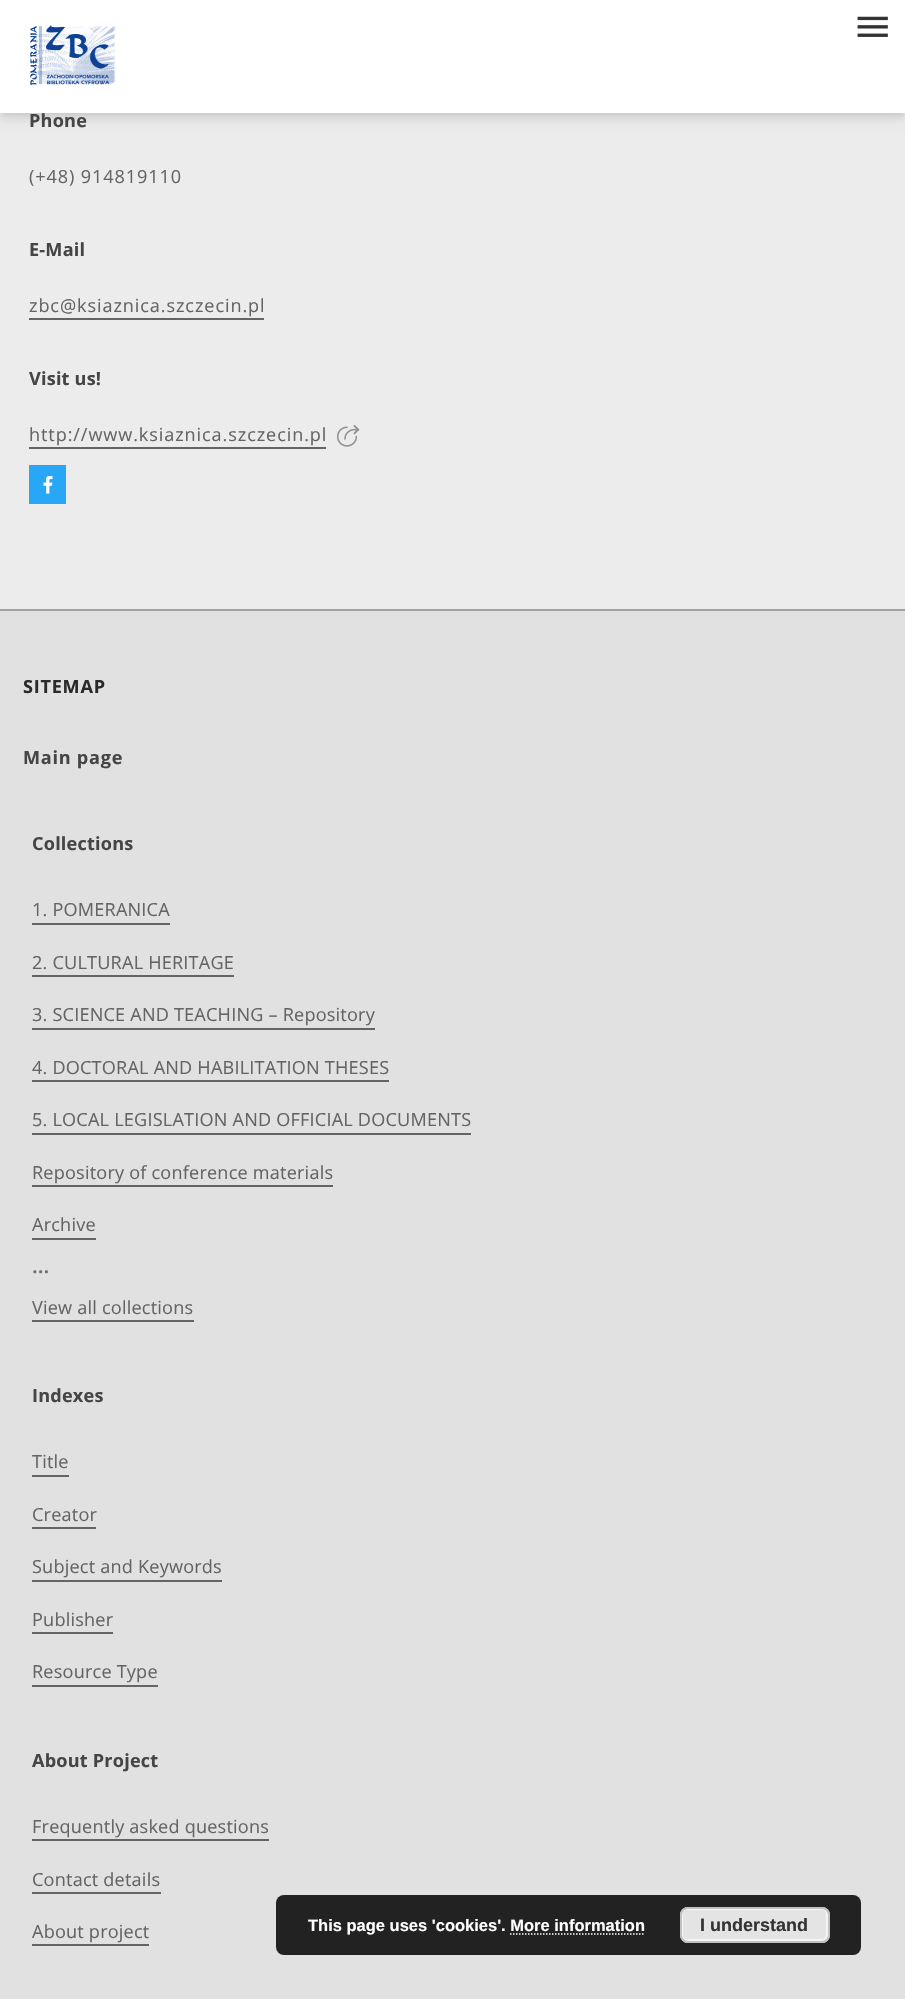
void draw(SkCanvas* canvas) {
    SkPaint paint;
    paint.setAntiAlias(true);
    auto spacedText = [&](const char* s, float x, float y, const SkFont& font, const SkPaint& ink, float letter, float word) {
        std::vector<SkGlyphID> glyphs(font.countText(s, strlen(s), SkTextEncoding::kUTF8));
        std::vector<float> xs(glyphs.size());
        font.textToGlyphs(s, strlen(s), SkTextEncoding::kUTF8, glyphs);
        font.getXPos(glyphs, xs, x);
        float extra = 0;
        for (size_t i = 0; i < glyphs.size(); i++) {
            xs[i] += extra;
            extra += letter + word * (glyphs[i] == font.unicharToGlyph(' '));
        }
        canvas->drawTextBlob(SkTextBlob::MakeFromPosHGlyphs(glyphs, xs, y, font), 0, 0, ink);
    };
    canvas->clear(0xFFE1E1E1);
    paint.setColor(0xFFECECEC);
    canvas->drawRect(SkRect::MakeXYWH(0, 113, 905, 496), paint);
    paint.setColor(0x14000000);
    paint.setMaskFilter(SkMaskFilter::MakeBlur(kNormal_SkBlurStyle, 7.5f));
    canvas->drawRect(SkRect::MakeXYWH(0, 2, 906, 112), paint);
    paint.setMaskFilter(nullptr);
    paint.setColor(0x0F000000);
    paint.setMaskFilter(SkMaskFilter::MakeBlur(kNormal_SkBlurStyle, 4));
    canvas->drawRect(SkRect::MakeXYWH(0, 6, 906, 113), paint);
    paint.setMaskFilter(nullptr);
    paint.setMaskFilter(SkMaskFilter::MakeBlur(kNormal_SkBlurStyle, 3));
    canvas->drawRect(SkRect::MakeXYWH(2, 5, 903, 109), paint);
    paint.setMaskFilter(nullptr);
    paint.setColor(0xFFFFFFFF);
    canvas->drawRect(SkRect::MakeXYWH(0, 0, 905, 113), paint);
    canvas->drawImageRect(SkImages::DeferredFromEncodedData(SkData::MakeFromFileName("img1.png")), SkRect::MakeXYWH(30, 25, 86, 61), SkSamplingOptions());
    canvas->drawImageRect(SkImages::DeferredFromEncodedData(SkData::MakeFromFileName("img2.png")), SkRect::MakeXYWH(857, 16, 31, 21), SkSamplingOptions());
    SkFont font1(fontMgr->matchFamilyStyle("Open Sans", SkFontStyle::Bold()), 18.1f);
    font1.setSubpixel(true);
    paint.setColor(0xFF454545);
    spacedText("Phone", 29, 127, font1, paint, 0.2f, 0);
    SkFont font2(fontMgr->matchFamilyStyle("Open Sans", SkFontStyle::Normal()), 18.1f);
    font2.setSubpixel(true);
    paint.setColor(0xFF646464);
    spacedText("(+48) 914819110", 29, 183, font2, paint, 0.9f, 0);
    paint.setColor(0xFF454545);
    spacedText("E-Mail", 29, 256, font1, paint, 0.2f, 0);
    paint.setColor(0xFF646464);
    spacedText("zbc@ksiaznica.szczecin.pl", 29, 312, font2, paint, 0.9f, 0);
    canvas->drawRect(SkRect::MakeXYWH(29, 318, 235, 2), paint);
    paint.setColor(0xFF454545);
    spacedText("Visit us!", 29, 385, font1, paint, 0.2f, 0);
    paint.setColor(0xFF646464);
    spacedText("http://www.ksiaznica.szczecin.pl", 29, 441, font2, paint, 0.9f, 0);
    canvas->drawRect(SkRect::MakeXYWH(29, 447, 297, 2), paint);
    canvas->drawImageRect(SkImages::DeferredFromEncodedData(SkData::MakeFromFileName("img3.png")), SkRect::MakeXYWH(336, 425, 24, 22), SkSamplingOptions());
    paint.setColor(0xFF28A7F6);
    canvas->drawRect(SkRect::MakeXYWH(29, 465, 37, 39), paint);
    canvas->drawImageRect(SkImages::DeferredFromEncodedData(SkData::MakeFromFileName("img4.png")), SkRect::MakeXYWH(43, 476, 10, 18), SkSamplingOptions());
    paint.setColor(0xFF9FA3A7);
    canvas->drawRect(SkRect::MakeXYWH(0, 609, 905, 2), paint);
    paint.setColor(0xFF2A2A2A);
    spacedText("SITEMAP", 23, 693, font1, paint, 0.75f, 0);
    paint.setColor(0xFF454545);
    spacedText("Main page", 23, 764, font1, paint, 0.75f, 0);
    spacedText("Collections", 32, 850, font1, paint, 0.2f, 0);
    paint.setColor(0xFF646464);
    spacedText("1. POMERANICA", 32, 916, font2, paint, 0.2f, 0);
    canvas->drawRect(SkRect::MakeXYWH(32, 923, 138, 2), paint);
    spacedText("2. CULTURAL HERITAGE", 32, 969, font2, paint, 0.2f, 0);
    canvas->drawRect(SkRect::MakeXYWH(32, 975, 202, 2), paint);
    spacedText("3. SCIENCE AND TEACHING – Repository", 32, 1021, font2, paint, 0.2f, 0);
    canvas->drawRect(SkRect::MakeXYWH(32, 1028, 343, 2), paint);
    spacedText("4. DOCTORAL AND HABILITATION THESES", 32, 1074, font2, paint, 0.2f, 0);
    canvas->drawRect(SkRect::MakeXYWH(32, 1080, 357, 2), paint);
    spacedText("5. LOCAL LEGISLATION AND OFFICIAL DOCUMENTS", 32, 1126, font2, paint, 0.2f, 0);
    canvas->drawRect(SkRect::MakeXYWH(32, 1133, 439, 2), paint);
    spacedText("Repository of conference materials", 32, 1179, font2, paint, 0.2f, 0);
    canvas->drawRect(SkRect::MakeXYWH(32, 1185, 301, 2), paint);
    spacedText("Archive", 32, 1231, font2, paint, 0.2f, 0);
    canvas->drawRect(SkRect::MakeXYWH(32, 1238, 64, 2), paint);
    SkFont font3(fontMgr->matchFamilyStyle("Open Sans", SkFontStyle(600, SkFontStyle::kNormal_Width, SkFontStyle::kUpright_Slant)), 21);
    font3.setSubpixel(true);
    paint.setColor(0xFF707070);
    canvas->drawString("...", 32, 1273, font3, paint);
    paint.setColor(0xFF646464);
    spacedText("View all collections", 32, 1314, font2, paint, 0.2f, 0);
    canvas->drawRect(SkRect::MakeXYWH(32, 1320, 162, 2), paint);
    paint.setColor(0xFF454545);
    spacedText("Indexes", 32, 1402, font1, paint, 0.2f, 0);
    paint.setColor(0xFF646464);
    spacedText("Title", 32, 1468, font2, paint, 0.2f, 0);
    canvas->drawRect(SkRect::MakeXYWH(32, 1475, 37, 2), paint);
    spacedText("Creator", 32, 1521, font2, paint, 0.2f, 0);
    canvas->drawRect(SkRect::MakeXYWH(32, 1527, 64, 2), paint);
    spacedText("Subject and Keywords", 32, 1573, font2, paint, 0.2f, 0);
    canvas->drawRect(SkRect::MakeXYWH(32, 1580, 190, 2), paint);
    spacedText("Publisher", 32, 1626, font2, paint, 0.2f, 0);
    canvas->drawRect(SkRect::MakeXYWH(32, 1632, 81, 2), paint);
    spacedText("Resource Type", 32, 1678, font2, paint, 0.2f, 0);
    canvas->drawRect(SkRect::MakeXYWH(32, 1685, 126, 2), paint);
    paint.setColor(0xFF454545);
    spacedText("About Project", 32, 1767, font1, paint, 0.2f, 0);
    paint.setColor(0xFF646464);
    spacedText("Frequently asked questions", 32, 1833, font2, paint, 0.2f, 0);
    canvas->drawRect(SkRect::MakeXYWH(32, 1839, 237, 2), paint);
    spacedText("Contact details", 32, 1886, font2, paint, 0.2f, 0);
    canvas->drawRect(SkRect::MakeXYWH(32, 1892, 129, 2), paint);
    spacedText("About project", 32, 1938, font2, paint, 0.2f, 0);
    canvas->drawRect(SkRect::MakeXYWH(32, 1944, 117, 2), paint);
    paint.setColor(0xFF222222);
    canvas->drawRoundRect(SkRect::MakeXYWH(276, 1895, 585, 60), 8, 8, paint);
    SkFont font4(fontMgr->matchFamilyStyle("Liberation Sans", SkFontStyle::Bold()), 16.5f);
    font4.setSubpixel(true);
    paint.setColor(0xFFFFFFFF);
    canvas->drawString("This page uses 'cookies'. More information", 308, 1931, font4, paint);
    paint.setColor(0xFFE4E4E4);
    canvas->drawRoundRect(SkRect::MakeXYWH(680, 1907, 150, 36), 8, 8, paint);
    paint.setStyle(SkPaint::kStroke_Style);
    paint.setStrokeWidth(2);
    paint.setColor(0xFFF5F5F5);
    canvas->drawRoundRect(SkRect::MakeXYWH(682, 1909, 145, 31), 5, 5, paint);
    paint.setColor(0xFFC1C1C1);
    canvas->drawRoundRect(SkRect::MakeXYWH(681, 1908, 148, 34), 7, 7, paint);
    SkFont font5(fontMgr->matchFamilyStyle("Liberation Sans", SkFontStyle::Bold()), 18);
    font5.setSubpixel(true);
    paint.setStyle(SkPaint::kFill_Style);
    paint.setColor(0xFF333333);
    canvas->drawString("I understand", 700, 1931, font5, paint);
    paint.setStyle(SkPaint::kStroke_Style);
    paint.setStrokeWidth(1.5f);
    paint.setColor(0xFFFFFFFF);
    paint.setPathEffect(SkDashPathEffect::Make({{1.5f, 1.5f}}, 0));
    canvas->drawPath(SkPathBuilder().moveTo(510, 1934).lineTo(645, 1934).detach(), paint);
    paint.setPathEffect(nullptr);
}
